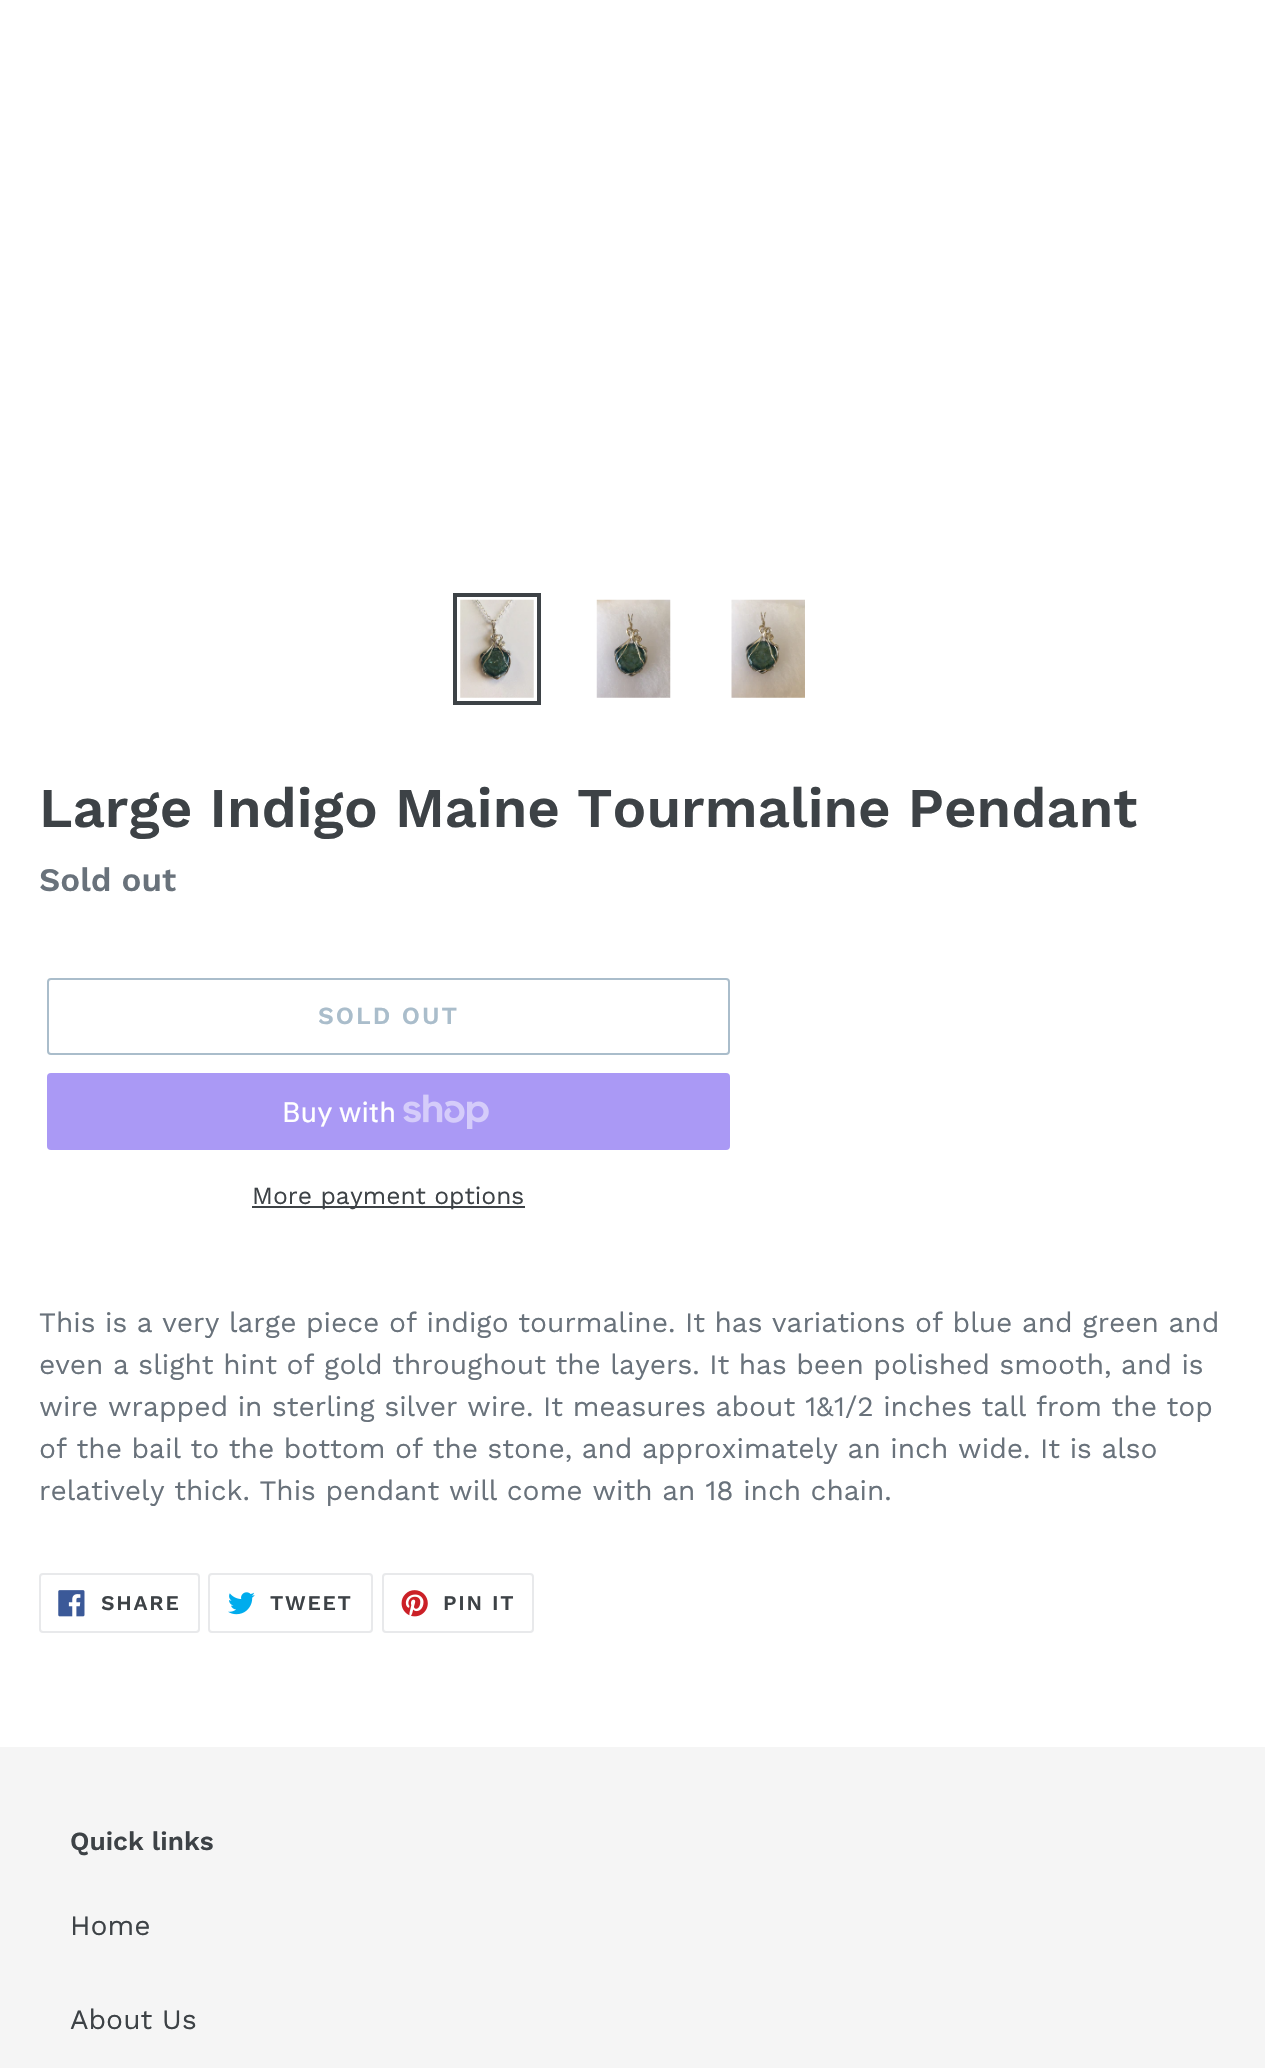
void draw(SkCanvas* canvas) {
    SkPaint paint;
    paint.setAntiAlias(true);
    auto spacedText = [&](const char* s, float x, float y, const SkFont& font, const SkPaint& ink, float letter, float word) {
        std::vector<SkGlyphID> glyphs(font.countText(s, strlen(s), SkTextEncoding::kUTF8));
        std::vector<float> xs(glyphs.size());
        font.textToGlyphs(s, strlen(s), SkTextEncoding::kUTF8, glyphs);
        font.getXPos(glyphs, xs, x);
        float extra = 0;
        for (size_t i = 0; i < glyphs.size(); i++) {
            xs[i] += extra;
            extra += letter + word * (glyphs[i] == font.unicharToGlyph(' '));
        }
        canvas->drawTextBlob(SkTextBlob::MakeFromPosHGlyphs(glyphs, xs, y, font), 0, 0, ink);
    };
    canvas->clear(0xFFFFFFFF);
    paint.setStyle(SkPaint::kStroke_Style);
    paint.setStrokeWidth(4);
    paint.setColor(0xFF3D4246);
    canvas->drawRect(SkRect::MakeXYWH(455, 595, 84, 108), paint);
    canvas->drawImageRect(SkImages::DeferredFromEncodedData(SkData::MakeFromFileName("img1.png")), SkRect::MakeXYWH(460, 599, 74, 99), SkSamplingOptions());
    canvas->drawImageRect(SkImages::DeferredFromEncodedData(SkData::MakeFromFileName("img2.png")), SkRect::MakeXYWH(596, 599, 75, 99), SkSamplingOptions());
    canvas->drawImageRect(SkImages::DeferredFromEncodedData(SkData::MakeFromFileName("img3.png")), SkRect::MakeXYWH(731, 599, 74, 99), SkSamplingOptions());
    SkFont font1(fontMgr->matchFamilyStyle("Work Sans", SkFontStyle(600, SkFontStyle::kNormal_Width, SkFontStyle::kUpright_Slant)), 56);
    font1.setSubpixel(true);
    paint.setStyle(SkPaint::kFill_Style);
    canvas->drawString("Large Indigo Maine Tourmaline Pendant", 39, 827, font1, paint);
    SkFont font2(fontMgr->matchFamilyStyle("Work Sans", SkFontStyle(600, SkFontStyle::kNormal_Width, SkFontStyle::kUpright_Slant)), 33);
    font2.setSubpixel(true);
    paint.setColor(0xFF69727B);
    canvas->drawString("Sold out", 39, 891, font2, paint);
    paint.setStyle(SkPaint::kStroke_Style);
    paint.setStrokeWidth(2);
    paint.setColor(0xFFAABDCB);
    canvas->drawRoundRect(SkRect::MakeXYWH(48, 979, 681, 75), 3, 3, paint);
    SkFont font3(fontMgr->matchFamilyStyle("Work Sans", SkFontStyle(600, SkFontStyle::kNormal_Width, SkFontStyle::kUpright_Slant)), 24.5f);
    font3.setSubpixel(true);
    paint.setStyle(SkPaint::kFill_Style);
    spacedText("SOLD OUT", 318, 1024, font3, paint, 2, 0);
    paint.setColor(0xFFAA99F5);
    canvas->drawRoundRect(SkRect::MakeXYWH(47, 1073, 683, 77), 4, 4, paint);
    SkFont font4(fontMgr->matchFamilyStyle("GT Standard", SkFontStyle::Normal()), 28);
    font4.setSubpixel(true);
    paint.setColor(0xFFFFFFFF);
    canvas->drawString("Buy with", 282, 1122, font4, paint);
    canvas->drawImageRect(SkImages::DeferredFromEncodedData(SkData::MakeFromFileName("img4.png")), SkRect::MakeXYWH(403, 1094, 86, 35), SkSamplingOptions());
    paint.setColor(0xFF3D4246);
    canvas->drawRect(SkRect::MakeXYWH(252, 1206, 273, 2), paint);
    SkFont font5(fontMgr->matchFamilyStyle("Work Sans", SkFontStyle::Normal()), 24.5f);
    font5.setSubpixel(true);
    canvas->drawString("More payment options", 252, 1204, font5, paint);
    SkFont font6(fontMgr->matchFamilyStyle("Work Sans", SkFontStyle::Normal()), 28);
    font6.setSubpixel(true);
    paint.setColor(0xFF69727B);
    canvas->drawString("This is a very large piece of indigo tourmaline. It has variations of blue and green and", 39, 1332, font6, paint);
    canvas->drawString("even a slight hint of gold throughout the layers. It has been polished smooth, and is", 39, 1374, font6, paint);
    canvas->drawString("wire wrapped in sterling silver wire. It measures about 1&1/2 inches tall from the top", 39, 1416, font6, paint);
    canvas->drawString("of the bail to the bottom of the stone, and approximately an inch wide. It is also", 39, 1458, font6, paint);
    canvas->drawString("relatively thick. This pendant will come with an 18 inch chain.", 39, 1500, font6, paint);
    paint.setStyle(SkPaint::kStroke_Style);
    paint.setColor(0xFFE8E9EB);
    canvas->drawRoundRect(SkRect::MakeXYWH(40, 1574, 159, 58), 3, 3, paint);
    canvas->drawImageRect(SkImages::DeferredFromEncodedData(SkData::MakeFromFileName("img5.png")), SkRect::MakeXYWH(58, 1590, 27, 27), SkSamplingOptions());
    SkFont font7(fontMgr->matchFamilyStyle("Work Sans", SkFontStyle(600, SkFontStyle::kNormal_Width, SkFontStyle::kUpright_Slant)), 21);
    font7.setSubpixel(true);
    paint.setStyle(SkPaint::kFill_Style);
    paint.setColor(0xFF3D4246);
    spacedText("SHARE", 101, 1610, font7, paint, 1.75f, 0);
    paint.setStyle(SkPaint::kStroke_Style);
    paint.setColor(0xFFE8E9EB);
    canvas->drawRoundRect(SkRect::MakeXYWH(209, 1574, 163, 58), 3, 3, paint);
    canvas->drawImageRect(SkImages::DeferredFromEncodedData(SkData::MakeFromFileName("img6.png")), SkRect::MakeXYWH(228, 1592, 27, 23), SkSamplingOptions());
    paint.setStyle(SkPaint::kFill_Style);
    paint.setColor(0xFF3D4246);
    spacedText("TWEET", 270, 1610, font7, paint, 1.75f, 0);
    paint.setStyle(SkPaint::kStroke_Style);
    paint.setColor(0xFFE8E9EB);
    canvas->drawRoundRect(SkRect::MakeXYWH(383, 1574, 150, 58), 3, 3, paint);
    canvas->drawImageRect(SkImages::DeferredFromEncodedData(SkData::MakeFromFileName("img7.png")), SkRect::MakeXYWH(401, 1590, 27, 27), SkSamplingOptions());
    paint.setStyle(SkPaint::kFill_Style);
    paint.setColor(0xFF3D4246);
    spacedText("PIN IT", 443, 1610, font7, paint, 1.75f, 0);
    paint.setColor(0xFFF5F5F5);
    canvas->drawRect(SkRect::MakeXYWH(0, 1747, 1265, 321), paint);
    SkFont font8(fontMgr->matchFamilyStyle("Work Sans", SkFontStyle(600, SkFontStyle::kNormal_Width, SkFontStyle::kUpright_Slant)), 26.25f);
    font8.setSubpixel(true);
    paint.setColor(0xFF3D4246);
    canvas->drawString("Quick links", 70, 1850, font8, paint);
    canvas->drawString("Home", 70, 1935, font6, paint);
    canvas->drawString("About Us", 70, 2029, font6, paint);
}
